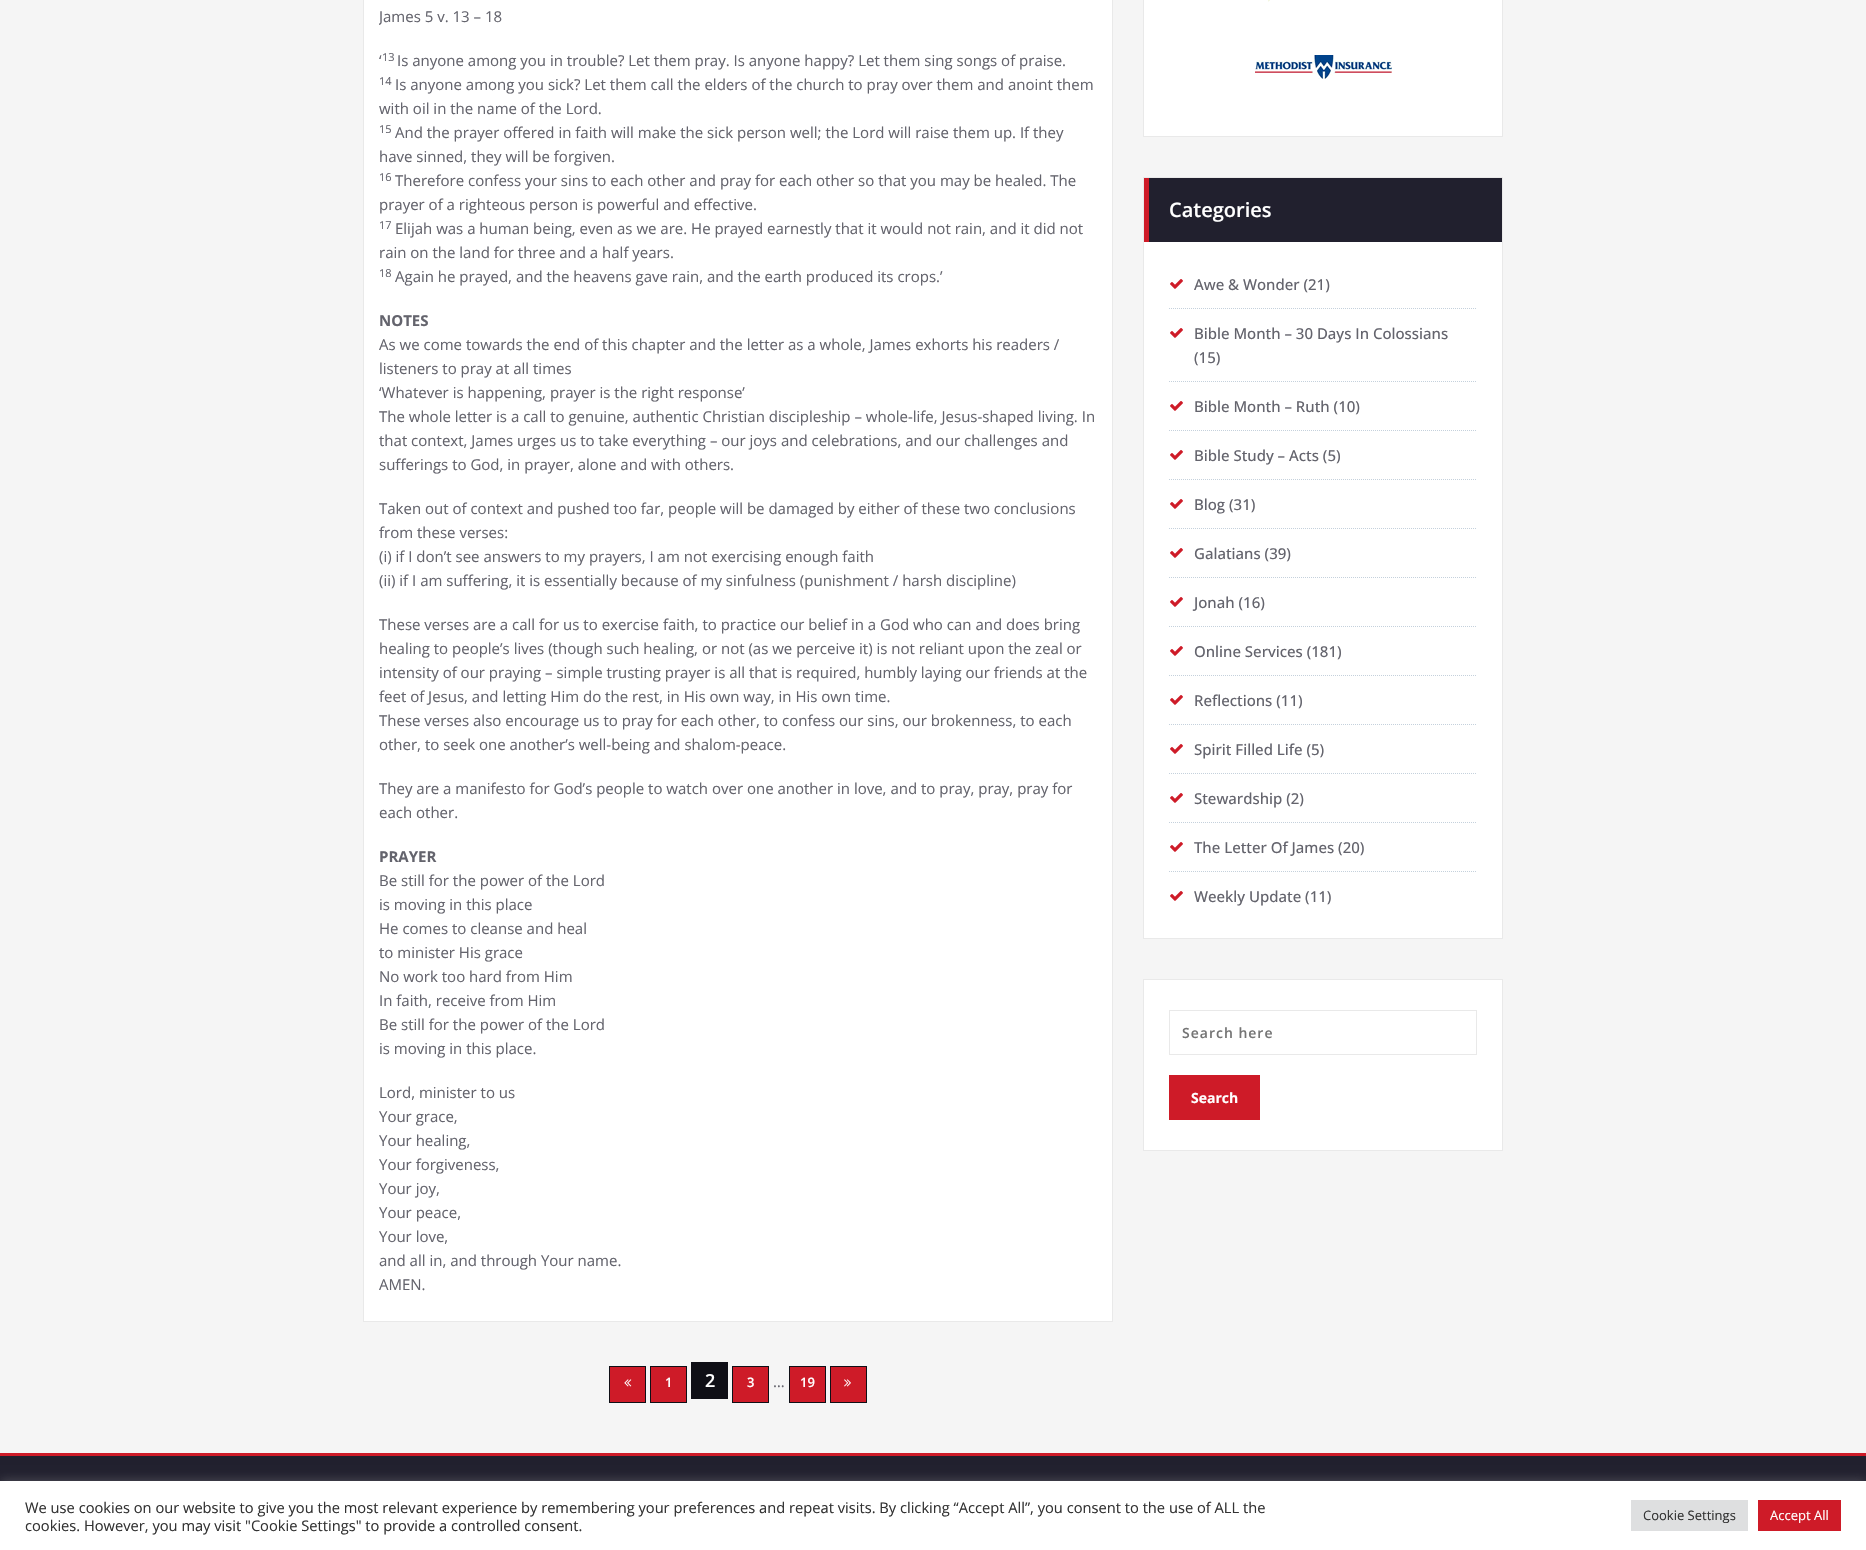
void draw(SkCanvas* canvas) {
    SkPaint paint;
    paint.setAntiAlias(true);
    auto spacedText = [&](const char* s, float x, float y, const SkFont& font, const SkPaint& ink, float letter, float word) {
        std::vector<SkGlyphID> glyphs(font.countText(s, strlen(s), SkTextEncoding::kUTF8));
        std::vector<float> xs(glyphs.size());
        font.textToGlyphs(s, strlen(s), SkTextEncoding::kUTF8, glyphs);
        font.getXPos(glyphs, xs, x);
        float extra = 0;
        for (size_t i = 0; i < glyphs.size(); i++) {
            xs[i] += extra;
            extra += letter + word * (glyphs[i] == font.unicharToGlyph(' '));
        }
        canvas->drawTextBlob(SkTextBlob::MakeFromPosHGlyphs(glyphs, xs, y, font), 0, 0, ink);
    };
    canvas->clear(0xFFF5F5F5);
    paint.setColor(0xFFFFFFFF);
    canvas->drawRect(SkRect::MakeXYWH(363.5f, -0.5f, 749, 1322), paint);
    paint.setStyle(SkPaint::kStroke_Style);
    paint.setStrokeWidth(1);
    paint.setColor(0xFFE9E9E9);
    canvas->drawRect(SkRect::MakeXYWH(363.5f, -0.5f, 749, 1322), paint);
    canvas->save();
    canvas->clipRect(SkRect::MakeXYWH(379, 4, 718, 1292));
    SkFont font1(fontMgr->matchFamilyStyle("Open Sans", SkFontStyle::Normal()), 15);
    font1.setSubpixel(true);
    paint.setStyle(SkPaint::kFill_Style);
    paint.setColor(0xFF64646D);
    canvas->drawString("James 5 v. 13 – 18", 379, 22, font1, paint);
    canvas->restore();
    canvas->drawString("‘", 379, 66, font1, paint);
    SkFont font2(fontMgr->matchFamilyStyle("Open Sans", SkFontStyle::Normal()), 11);
    font2.setSubpixel(true);
    canvas->drawString("13", 382, 61, font2, paint);
    canvas->drawString("Is anyone among you in trouble? Let them pray. Is anyone happy? Let them sing songs of praise.", 397, 66, font1, paint);
    canvas->drawString("14", 379, 85, font2, paint);
    canvas->drawString("Is anyone among you sick? Let them call the elders of the church to pray over them and anoint them", 395, 90, font1, paint);
    canvas->drawString("with oil in the name of the Lord.", 379, 114, font1, paint);
    canvas->drawString("15", 379, 133, font2, paint);
    canvas->drawString("And the prayer offered in faith will make the sick person well; the Lord will raise them up. If they", 395, 138, font1, paint);
    canvas->drawString("have sinned, they will be forgiven.", 379, 162, font1, paint);
    canvas->drawString("16", 379, 181, font2, paint);
    canvas->drawString("Therefore confess your sins to each other and pray for each other so that you may be healed. The", 395, 186, font1, paint);
    canvas->drawString("prayer of a righteous person is powerful and effective.", 379, 210, font1, paint);
    canvas->drawString("17", 379, 229, font2, paint);
    canvas->drawString("Elijah was a human being, even as we are. He prayed earnestly that it would not rain, and it did not", 395, 234, font1, paint);
    canvas->drawString("rain on the land for three and a half years.", 379, 258, font1, paint);
    canvas->drawString("18", 379, 277, font2, paint);
    canvas->drawString("Again he prayed, and the heavens gave rain, and the earth produced its crops.’", 395, 282, font1, paint);
    SkFont font3(fontMgr->matchFamilyStyle("Open Sans", SkFontStyle::Bold()), 15);
    font3.setSubpixel(true);
    canvas->drawString("NOTES", 379, 326, font3, paint);
    canvas->drawString("As we come towards the end of this chapter and the letter as a whole, James exhorts his readers /", 379, 350, font1, paint);
    canvas->drawString("listeners to pray at all times", 379, 374, font1, paint);
    canvas->drawString("‘Whatever is happening, prayer is the right response’", 379, 398, font1, paint);
    canvas->drawString("The whole letter is a call to genuine, authentic Christian discipleship – whole-life, Jesus-shaped living. In", 379, 422, font1, paint);
    canvas->drawString("that context, James urges us to take everything – our joys and celebrations, and our challenges and", 379, 446, font1, paint);
    canvas->drawString("sufferings to God, in prayer, alone and with others.", 379, 470, font1, paint);
    canvas->drawString("Taken out of context and pushed too far, people will be damaged by either of these two conclusions", 379, 514, font1, paint);
    canvas->drawString("from these verses:", 379, 538, font1, paint);
    canvas->drawString("(i) if I don’t see answers to my prayers, I am not exercising enough faith", 379, 562, font1, paint);
    canvas->drawString("(ii) if I am suffering, it is essentially because of my sinfulness (punishment / harsh discipline)", 379, 586, font1, paint);
    canvas->drawString("These verses are a call for us to exercise faith, to practice our belief in a God who can and does bring", 379, 630, font1, paint);
    canvas->drawString("healing to people’s lives (though such healing, or not (as we perceive it) is not reliant upon the zeal or", 379, 654, font1, paint);
    canvas->drawString("intensity of our praying – simple trusting prayer is all that is required, humbly laying our friends at the", 379, 678, font1, paint);
    canvas->drawString("feet of Jesus, and letting Him do the rest, in His own way, in His own time.", 379, 702, font1, paint);
    canvas->drawString("These verses also encourage us to pray for each other, to confess our sins, our brokenness, to each", 379, 726, font1, paint);
    canvas->drawString("other, to seek one another’s well-being and shalom-peace.", 379, 750, font1, paint);
    canvas->drawString("They are a manifesto for God’s people to watch over one another in love, and to pray, pray, pray for", 379, 794, font1, paint);
    canvas->drawString("each other.", 379, 818, font1, paint);
    canvas->drawString("PRAYER", 379, 862, font3, paint);
    canvas->drawString("Be still for the power of the Lord", 379, 886, font1, paint);
    canvas->drawString("is moving in this place", 379, 910, font1, paint);
    canvas->drawString("He comes to cleanse and heal", 379, 934, font1, paint);
    canvas->drawString("to minister His grace", 379, 958, font1, paint);
    canvas->drawString("No work too hard from Him", 379, 982, font1, paint);
    canvas->drawString("In faith, receive from Him", 379, 1006, font1, paint);
    canvas->drawString("Be still for the power of the Lord", 379, 1030, font1, paint);
    canvas->drawString("is moving in this place.", 379, 1054, font1, paint);
    canvas->drawString("Lord, minister to us", 379, 1098, font1, paint);
    canvas->drawString("Your grace,", 379, 1122, font1, paint);
    canvas->drawString("Your healing,", 379, 1146, font1, paint);
    canvas->drawString("Your forgiveness,", 379, 1170, font1, paint);
    canvas->drawString("Your joy,", 379, 1194, font1, paint);
    canvas->drawString("Your peace,", 379, 1218, font1, paint);
    canvas->drawString("Your love,", 379, 1242, font1, paint);
    canvas->drawString("and all in, and through Your name.", 379, 1266, font1, paint);
    canvas->drawString("AMEN.", 379, 1290, font1, paint);
    paint.setColor(0xFFCE1B28);
    canvas->drawRect(SkRect::MakeXYWH(609.5f, 1366.5f, 36, 36), paint);
    paint.setStyle(SkPaint::kStroke_Style);
    paint.setColor(0xFF0F0F16);
    canvas->drawRect(SkRect::MakeXYWH(609.5f, 1366.5f, 36, 36), paint);
    canvas->drawImageRect(SkImages::DeferredFromEncodedData(SkData::MakeFromFileName("img1.png")), SkRect::MakeXYWH(624, 1379, 8, 8), SkSamplingOptions());
    paint.setStyle(SkPaint::kFill_Style);
    paint.setColor(0xFFCE1B28);
    canvas->drawRect(SkRect::MakeXYWH(650.5f, 1366.5f, 36, 36), paint);
    paint.setStyle(SkPaint::kStroke_Style);
    paint.setColor(0xFF0F0F16);
    canvas->drawRect(SkRect::MakeXYWH(650.5f, 1366.5f, 36, 36), paint);
    SkFont font4(fontMgr->matchFamilyStyle("Open Sans", SkFontStyle(600, SkFontStyle::kNormal_Width, SkFontStyle::kUpright_Slant)), 13);
    font4.setSubpixel(true);
    paint.setStyle(SkPaint::kFill_Style);
    paint.setColor(0xFFFFFFFF);
    canvas->drawString("1", 665, 1387, font4, paint);
    paint.setColor(0xFF0F0F16);
    canvas->drawRect(SkRect::MakeXYWH(691, 1362, 37, 37), paint);
    SkFont font5(fontMgr->matchFamilyStyle("Open Sans", SkFontStyle(600, SkFontStyle::kNormal_Width, SkFontStyle::kUpright_Slant)), 18);
    font5.setSubpixel(true);
    paint.setColor(0xFFFFFFFF);
    canvas->drawString("2", 705, 1387, font5, paint);
    paint.setColor(0xFFCE1B28);
    canvas->drawRect(SkRect::MakeXYWH(732.5f, 1366.5f, 36, 36), paint);
    paint.setStyle(SkPaint::kStroke_Style);
    paint.setColor(0xFF0F0F16);
    canvas->drawRect(SkRect::MakeXYWH(732.5f, 1366.5f, 36, 36), paint);
    paint.setStyle(SkPaint::kFill_Style);
    paint.setColor(0xFFFFFFFF);
    canvas->drawString("3", 747, 1387, font4, paint);
    paint.setColor(0xFF64646D);
    canvas->drawString("…", 773, 1387, font1, paint);
    paint.setColor(0xFFCE1B28);
    canvas->drawRect(SkRect::MakeXYWH(789.5f, 1366.5f, 36, 36), paint);
    paint.setStyle(SkPaint::kStroke_Style);
    paint.setColor(0xFF0F0F16);
    canvas->drawRect(SkRect::MakeXYWH(789.5f, 1366.5f, 36, 36), paint);
    paint.setStyle(SkPaint::kFill_Style);
    paint.setColor(0xFFFFFFFF);
    canvas->drawString("19", 800, 1387, font4, paint);
    paint.setColor(0xFFCE1B28);
    canvas->drawRect(SkRect::MakeXYWH(830.5f, 1366.5f, 36, 36), paint);
    paint.setStyle(SkPaint::kStroke_Style);
    paint.setColor(0xFF0F0F16);
    canvas->drawRect(SkRect::MakeXYWH(830.5f, 1366.5f, 36, 36), paint);
    canvas->drawImageRect(SkImages::DeferredFromEncodedData(SkData::MakeFromFileName("img2.png")), SkRect::MakeXYWH(844, 1379, 7, 8), SkSamplingOptions());
    paint.setStyle(SkPaint::kFill_Style);
    paint.setColor(0xFFFFFFFF);
    canvas->drawRect(SkRect::MakeXYWH(1143.5f, -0.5f, 359, 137), paint);
    paint.setStyle(SkPaint::kStroke_Style);
    paint.setColor(0xFFE9E9E9);
    canvas->drawRect(SkRect::MakeXYWH(1143.5f, -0.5f, 359, 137), paint);
    canvas->drawImageRect(SkImages::DeferredFromEncodedData(SkData::MakeFromFileName("img3.png")), SkRect::MakeXYWH(1268, 0, 2, 2), SkSamplingOptions());
    canvas->drawImageRect(SkImages::DeferredFromEncodedData(SkData::MakeFromFileName("img4.png")), SkRect::MakeXYWH(1255, 55, 137, 24), SkSamplingOptions());
    paint.setStyle(SkPaint::kFill_Style);
    paint.setColor(0xFFFFFFFF);
    canvas->drawRect(SkRect::MakeXYWH(1144, 242, 358, 696), paint);
    paint.setStyle(SkPaint::kStroke_Style);
    paint.setColor(0xFFE9E9E9);
    canvas->drawRect(SkRect::MakeXYWH(1143.5f, 177.5f, 359, 761), paint);
    paint.setStyle(SkPaint::kFill_Style);
    paint.setColor(0xFF21202E);
    canvas->drawRect(SkRect::MakeXYWH(1149, 178, 353, 64), paint);
    paint.setColor(0xFFCE1B28);
    canvas->drawRect(SkRect::MakeXYWH(1144, 178, 5, 64), paint);
    SkFont font6(fontMgr->matchFamilyStyle("Open Sans", SkFontStyle(600, SkFontStyle::kNormal_Width, SkFontStyle::kUpright_Slant)), 20);
    font6.setSubpixel(true);
    paint.setColor(0xFFFFFFFF);
    canvas->drawString("Categories", 1169, 217, font6, paint);
    paint.setStyle(SkPaint::kStroke_Style);
    paint.setColor(0xFFC5D1DC);
    paint.setPathEffect(SkDashPathEffect::Make({{1, 1}}, 0));
    canvas->drawPath(SkPathBuilder().moveTo(1169, 308.5f).lineTo(1477, 308.5f).detach(), paint);
    paint.setPathEffect(nullptr);
    canvas->drawImageRect(SkImages::DeferredFromEncodedData(SkData::MakeFromFileName("img5.png")), SkRect::MakeXYWH(1170, 279, 13, 10), SkSamplingOptions());
    SkFont font7(fontMgr->matchFamilyStyle("Open Sans", SkFontStyle(500, SkFontStyle::kNormal_Width, SkFontStyle::kUpright_Slant)), 15);
    font7.setSubpixel(true);
    paint.setStyle(SkPaint::kFill_Style);
    paint.setColor(0xFF64646D);
    canvas->drawString("Awe & Wonder (21)", 1194, 290, font7, paint);
    paint.setStyle(SkPaint::kStroke_Style);
    paint.setColor(0xFFC5D1DC);
    paint.setPathEffect(SkDashPathEffect::Make({{1, 1}}, 0));
    canvas->drawPath(SkPathBuilder().moveTo(1169, 381.5f).lineTo(1477, 381.5f).detach(), paint);
    paint.setPathEffect(nullptr);
    canvas->drawImageRect(SkImages::DeferredFromEncodedData(SkData::MakeFromFileName("img5.png")), SkRect::MakeXYWH(1170, 328, 13, 10), SkSamplingOptions());
    paint.setStyle(SkPaint::kFill_Style);
    paint.setColor(0xFF64646D);
    canvas->drawString("Bible Month – 30 Days In Colossians", 1194, 339, font7, paint);
    canvas->drawString("(15)", 1194, 363, font7, paint);
    paint.setStyle(SkPaint::kStroke_Style);
    paint.setColor(0xFFC5D1DC);
    paint.setPathEffect(SkDashPathEffect::Make({{1, 1}}, 0));
    canvas->drawPath(SkPathBuilder().moveTo(1169, 430.5f).lineTo(1477, 430.5f).detach(), paint);
    paint.setPathEffect(nullptr);
    canvas->drawImageRect(SkImages::DeferredFromEncodedData(SkData::MakeFromFileName("img5.png")), SkRect::MakeXYWH(1170, 401, 13, 10), SkSamplingOptions());
    paint.setStyle(SkPaint::kFill_Style);
    paint.setColor(0xFF64646D);
    canvas->drawString("Bible Month – Ruth (10)", 1194, 412, font7, paint);
    paint.setStyle(SkPaint::kStroke_Style);
    paint.setColor(0xFFC5D1DC);
    paint.setPathEffect(SkDashPathEffect::Make({{1, 1}}, 0));
    canvas->drawPath(SkPathBuilder().moveTo(1169, 479.5f).lineTo(1477, 479.5f).detach(), paint);
    paint.setPathEffect(nullptr);
    canvas->drawImageRect(SkImages::DeferredFromEncodedData(SkData::MakeFromFileName("img5.png")), SkRect::MakeXYWH(1170, 450, 13, 10), SkSamplingOptions());
    paint.setStyle(SkPaint::kFill_Style);
    paint.setColor(0xFF64646D);
    canvas->drawString("Bible Study – Acts (5)", 1194, 461, font7, paint);
    paint.setStyle(SkPaint::kStroke_Style);
    paint.setColor(0xFFC5D1DC);
    paint.setPathEffect(SkDashPathEffect::Make({{1, 1}}, 0));
    canvas->drawPath(SkPathBuilder().moveTo(1169, 528.5f).lineTo(1477, 528.5f).detach(), paint);
    paint.setPathEffect(nullptr);
    canvas->drawImageRect(SkImages::DeferredFromEncodedData(SkData::MakeFromFileName("img5.png")), SkRect::MakeXYWH(1170, 499, 13, 10), SkSamplingOptions());
    paint.setStyle(SkPaint::kFill_Style);
    paint.setColor(0xFF64646D);
    canvas->drawString("Blog (31)", 1194, 510, font7, paint);
    paint.setStyle(SkPaint::kStroke_Style);
    paint.setColor(0xFFC5D1DC);
    paint.setPathEffect(SkDashPathEffect::Make({{1, 1}}, 0));
    canvas->drawPath(SkPathBuilder().moveTo(1169, 577.5f).lineTo(1477, 577.5f).detach(), paint);
    paint.setPathEffect(nullptr);
    canvas->drawImageRect(SkImages::DeferredFromEncodedData(SkData::MakeFromFileName("img5.png")), SkRect::MakeXYWH(1170, 548, 13, 10), SkSamplingOptions());
    paint.setStyle(SkPaint::kFill_Style);
    paint.setColor(0xFF64646D);
    canvas->drawString("Galatians (39)", 1194, 559, font7, paint);
    paint.setStyle(SkPaint::kStroke_Style);
    paint.setColor(0xFFC5D1DC);
    paint.setPathEffect(SkDashPathEffect::Make({{1, 1}}, 0));
    canvas->drawPath(SkPathBuilder().moveTo(1169, 626.5f).lineTo(1477, 626.5f).detach(), paint);
    paint.setPathEffect(nullptr);
    canvas->drawImageRect(SkImages::DeferredFromEncodedData(SkData::MakeFromFileName("img5.png")), SkRect::MakeXYWH(1170, 597, 13, 10), SkSamplingOptions());
    paint.setStyle(SkPaint::kFill_Style);
    paint.setColor(0xFF64646D);
    canvas->drawString("Jonah (16)", 1194, 608, font7, paint);
    paint.setStyle(SkPaint::kStroke_Style);
    paint.setColor(0xFFC5D1DC);
    paint.setPathEffect(SkDashPathEffect::Make({{1, 1}}, 0));
    canvas->drawPath(SkPathBuilder().moveTo(1169, 675.5f).lineTo(1477, 675.5f).detach(), paint);
    paint.setPathEffect(nullptr);
    canvas->drawImageRect(SkImages::DeferredFromEncodedData(SkData::MakeFromFileName("img5.png")), SkRect::MakeXYWH(1170, 646, 13, 10), SkSamplingOptions());
    paint.setStyle(SkPaint::kFill_Style);
    paint.setColor(0xFF64646D);
    canvas->drawString("Online Services (181)", 1194, 657, font7, paint);
    paint.setStyle(SkPaint::kStroke_Style);
    paint.setColor(0xFFC5D1DC);
    paint.setPathEffect(SkDashPathEffect::Make({{1, 1}}, 0));
    canvas->drawPath(SkPathBuilder().moveTo(1169, 724.5f).lineTo(1477, 724.5f).detach(), paint);
    paint.setPathEffect(nullptr);
    canvas->drawImageRect(SkImages::DeferredFromEncodedData(SkData::MakeFromFileName("img5.png")), SkRect::MakeXYWH(1170, 695, 13, 10), SkSamplingOptions());
    paint.setStyle(SkPaint::kFill_Style);
    paint.setColor(0xFF64646D);
    canvas->drawString("Reflections (11)", 1194, 706, font7, paint);
    paint.setStyle(SkPaint::kStroke_Style);
    paint.setColor(0xFFC5D1DC);
    paint.setPathEffect(SkDashPathEffect::Make({{1, 1}}, 0));
    canvas->drawPath(SkPathBuilder().moveTo(1169, 773.5f).lineTo(1477, 773.5f).detach(), paint);
    paint.setPathEffect(nullptr);
    canvas->drawImageRect(SkImages::DeferredFromEncodedData(SkData::MakeFromFileName("img5.png")), SkRect::MakeXYWH(1170, 744, 13, 10), SkSamplingOptions());
    paint.setStyle(SkPaint::kFill_Style);
    paint.setColor(0xFF64646D);
    canvas->drawString("Spirit Filled Life (5)", 1194, 755, font7, paint);
    paint.setStyle(SkPaint::kStroke_Style);
    paint.setColor(0xFFC5D1DC);
    paint.setPathEffect(SkDashPathEffect::Make({{1, 1}}, 0));
    canvas->drawPath(SkPathBuilder().moveTo(1169, 822.5f).lineTo(1477, 822.5f).detach(), paint);
    paint.setPathEffect(nullptr);
    canvas->drawImageRect(SkImages::DeferredFromEncodedData(SkData::MakeFromFileName("img5.png")), SkRect::MakeXYWH(1170, 793, 13, 10), SkSamplingOptions());
    paint.setStyle(SkPaint::kFill_Style);
    paint.setColor(0xFF64646D);
    canvas->drawString("Stewardship (2)", 1194, 804, font7, paint);
    paint.setStyle(SkPaint::kStroke_Style);
    paint.setColor(0xFFC5D1DC);
    paint.setPathEffect(SkDashPathEffect::Make({{1, 1}}, 0));
    canvas->drawPath(SkPathBuilder().moveTo(1169, 871.5f).lineTo(1477, 871.5f).detach(), paint);
    paint.setPathEffect(nullptr);
    canvas->drawImageRect(SkImages::DeferredFromEncodedData(SkData::MakeFromFileName("img5.png")), SkRect::MakeXYWH(1170, 842, 13, 10), SkSamplingOptions());
    paint.setStyle(SkPaint::kFill_Style);
    paint.setColor(0xFF64646D);
    canvas->drawString("The Letter Of James (20)", 1194, 853, font7, paint);
    canvas->drawImageRect(SkImages::DeferredFromEncodedData(SkData::MakeFromFileName("img5.png")), SkRect::MakeXYWH(1170, 891, 13, 10), SkSamplingOptions());
    canvas->drawString("Weekly Update (11)", 1194, 902, font7, paint);
    paint.setColor(0xFFFFFFFF);
    canvas->drawRect(SkRect::MakeXYWH(1143.5f, 979.5f, 359, 171), paint);
    paint.setStyle(SkPaint::kStroke_Style);
    paint.setColor(0xFFE9E9E9);
    canvas->drawRect(SkRect::MakeXYWH(1143.5f, 979.5f, 359, 171), paint);
    canvas->drawRect(SkRect::MakeXYWH(1169.5f, 1010.5f, 307, 44), paint);
    SkFont font8(fontMgr->matchFamilyStyle("Open Sans", SkFontStyle(600, SkFontStyle::kNormal_Width, SkFontStyle::kUpright_Slant)), 14);
    font8.setSubpixel(true);
    paint.setStyle(SkPaint::kFill_Style);
    paint.setColor(0xFF757575);
    spacedText("Search here", 1182, 1038, font8, paint, 1, 0);
    paint.setColor(0xFFCE1B28);
    canvas->drawRect(SkRect::MakeXYWH(1169, 1075, 91, 45), paint);
    SkFont font9(fontMgr->matchFamilyStyle("Open Sans", SkFontStyle::Bold()), 14);
    font9.setSubpixel(true);
    paint.setColor(0xFFFFFFFF);
    canvas->drawString("Search", 1191, 1103, font9, paint);
    paint.setColor(0xFF21202E);
    canvas->drawRect(SkRect::MakeXYWH(0, 1456, 1866, 25), paint);
    paint.setColor(0xFFCE1B28);
    canvas->drawRect(SkRect::MakeXYWH(0, 1453, 1866, 3), paint);
    paint.setColor(0x4DACABAB);
    paint.setMaskFilter(SkMaskFilter::MakeBlur(kNormal_SkBlurStyle, 5));
    canvas->drawRect(SkRect::MakeXYWH(0, 1480, 1866, 69), paint);
    paint.setMaskFilter(nullptr);
    paint.setColor(0xFFFFFFFF);
    canvas->drawRect(SkRect::MakeXYWH(0, 1481, 1866, 69), paint);
    SkFont font10(fontMgr->matchFamilyStyle("Open Sans", SkFontStyle::Normal()), 14.67f);
    font10.setSubpixel(true);
    paint.setColor(0xFF333333);
    canvas->drawString("We use cookies on our website to give you the most relevant experience by remembering your preferences and repeat visits. By clicking “Accept All”, you consent to the use of ALL the", 25, 1513, font10, paint);
    canvas->drawString("cookies. However, you may visit \"Cookie Settings\" to provide a controlled consent.", 25, 1531, font10, paint);
    paint.setColor(0xFFDEDFE0);
    canvas->drawRect(SkRect::MakeXYWH(1631, 1500, 117, 31), paint);
    SkFont font11(fontMgr->matchFamilyStyle("Open Sans", SkFontStyle::Normal()), 13);
    font11.setSubpixel(true);
    paint.setColor(0xFF333333);
    canvas->drawString("Cookie Settings", 1643, 1520, font11, paint);
    paint.setColor(0xFFCE1B28);
    canvas->drawRect(SkRect::MakeXYWH(1758, 1500, 83, 31), paint);
    paint.setColor(0xFFFFFFFF);
    canvas->drawString("Accept All", 1770, 1520, font11, paint);
}
